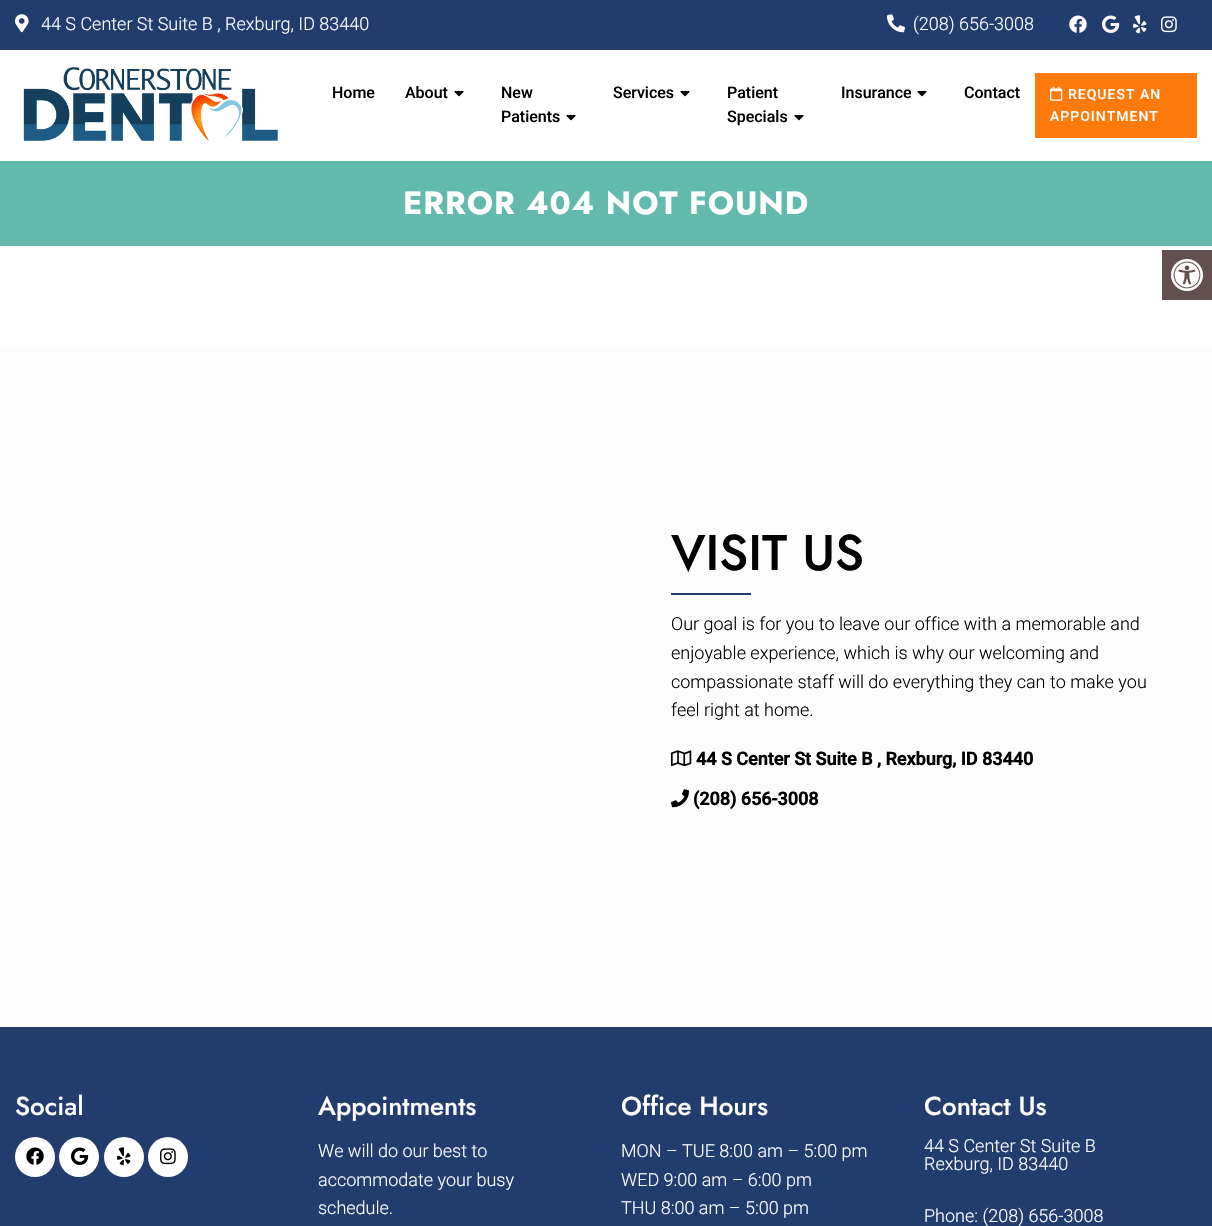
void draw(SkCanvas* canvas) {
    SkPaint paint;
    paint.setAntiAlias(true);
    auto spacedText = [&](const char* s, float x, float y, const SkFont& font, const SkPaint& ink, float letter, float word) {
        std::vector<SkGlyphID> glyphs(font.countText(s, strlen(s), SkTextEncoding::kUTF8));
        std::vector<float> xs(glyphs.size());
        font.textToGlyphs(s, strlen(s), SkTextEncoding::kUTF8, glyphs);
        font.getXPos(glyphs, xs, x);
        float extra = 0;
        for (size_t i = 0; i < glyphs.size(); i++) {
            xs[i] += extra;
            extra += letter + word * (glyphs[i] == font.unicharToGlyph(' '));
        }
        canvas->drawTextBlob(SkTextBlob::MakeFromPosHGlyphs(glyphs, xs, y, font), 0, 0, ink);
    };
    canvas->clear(0xFFFFFFFF);
    paint.setColor(0xFF223D6D);
    canvas->drawRect(SkRect::MakeXYWH(0, 0, 1212, 50), paint);
    canvas->drawImageRect(SkImages::DeferredFromEncodedData(SkData::MakeFromFileName("img1.png")), SkRect::MakeXYWH(15, 14, 14, 19), SkSamplingOptions());
    SkFont font1(fontMgr->matchFamilyStyle("Roboto", SkFontStyle(300, SkFontStyle::kNormal_Width, SkFontStyle::kUpright_Slant)), 18);
    font1.setSubpixel(true);
    paint.setColor(0xFFFFFFFF);
    canvas->drawString("44 S Center St Suite B , Rexburg, ID 83440", 41, 30, font1, paint);
    canvas->drawImageRect(SkImages::DeferredFromEncodedData(SkData::MakeFromFileName("img2.png")), SkRect::MakeXYWH(887, 14, 18, 19), SkSamplingOptions());
    canvas->drawString("(208) 656-3008", 913, 30, font1, paint);
    canvas->drawImageRect(SkImages::DeferredFromEncodedData(SkData::MakeFromFileName("img3.png")), SkRect::MakeXYWH(1069, 15, 18, 18), SkSamplingOptions());
    canvas->drawImageRect(SkImages::DeferredFromEncodedData(SkData::MakeFromFileName("img4.png")), SkRect::MakeXYWH(1102, 15, 18, 18), SkSamplingOptions());
    canvas->drawImageRect(SkImages::DeferredFromEncodedData(SkData::MakeFromFileName("img5.png")), SkRect::MakeXYWH(1133, 15, 14, 19), SkSamplingOptions());
    canvas->drawImageRect(SkImages::DeferredFromEncodedData(SkData::MakeFromFileName("img6.png")), SkRect::MakeXYWH(1161, 16, 16, 17), SkSamplingOptions());
    canvas->drawImageRect(SkImages::DeferredFromEncodedData(SkData::MakeFromFileName("img7.png")), SkRect::MakeXYWH(23, 67, 255, 74), SkSamplingOptions());
    SkFont font2(fontMgr->matchFamilyStyle("Roboto", SkFontStyle(500, SkFontStyle::kNormal_Width, SkFontStyle::kUpright_Slant)), 16);
    font2.setSubpixel(true);
    paint.setColor(0xFF000000);
    canvas->drawString("Home", 332, 98, font2, paint);
    canvas->drawString("About", 405, 98, font2, paint);
    canvas->drawImageRect(SkImages::DeferredFromEncodedData(SkData::MakeFromFileName("img8.png")), SkRect::MakeXYWH(454, 91, 10, 6), SkSamplingOptions());
    canvas->drawString("New", 501, 98, font2, paint);
    canvas->drawString("Patients", 501, 122, font2, paint);
    canvas->drawImageRect(SkImages::DeferredFromEncodedData(SkData::MakeFromFileName("img8.png")), SkRect::MakeXYWH(566, 115, 10, 6), SkSamplingOptions());
    canvas->drawString("Services", 613, 98, font2, paint);
    canvas->drawImageRect(SkImages::DeferredFromEncodedData(SkData::MakeFromFileName("img8.png")), SkRect::MakeXYWH(680, 91, 10, 6), SkSamplingOptions());
    canvas->drawString("Patient", 727, 98, font2, paint);
    canvas->drawString("Specials", 727, 122, font2, paint);
    canvas->drawImageRect(SkImages::DeferredFromEncodedData(SkData::MakeFromFileName("img8.png")), SkRect::MakeXYWH(794, 115, 10, 6), SkSamplingOptions());
    canvas->drawString("Insurance", 841, 98, font2, paint);
    canvas->drawImageRect(SkImages::DeferredFromEncodedData(SkData::MakeFromFileName("img8.png")), SkRect::MakeXYWH(917, 91, 10, 6), SkSamplingOptions());
    canvas->drawString("Contact", 964, 98, font2, paint);
    paint.setColor(0xFFFD7A0C);
    canvas->drawRect(SkRect::MakeXYWH(1035, 73, 162, 65), paint);
    canvas->drawImageRect(SkImages::DeferredFromEncodedData(SkData::MakeFromFileName("img9.png")), SkRect::MakeXYWH(1050, 86, 13, 15), SkSamplingOptions());
    SkFont font3(fontMgr->matchFamilyStyle("Roboto", SkFontStyle(500, SkFontStyle::kNormal_Width, SkFontStyle::kUpright_Slant)), 14);
    font3.setSubpixel(true);
    paint.setColor(0xFFFFFFFF);
    spacedText("REQUEST AN", 1068, 99, font3, paint, 1, 0);
    spacedText("APPOINTMENT", 1050, 121, font3, paint, 1, 0);
    paint.setColor(0xFF62BAAD);
    canvas->drawRect(SkRect::MakeXYWH(0, 161, 1212, 85), paint);
    SkFont font4(fontMgr->matchFamilyStyle("Jost", SkFontStyle::Bold()), 32);
    font4.setSubpixel(true);
    paint.setColor(0xFFFFFFFF);
    spacedText("ERROR 404 NOT FOUND", 403, 214, font4, paint, 1, 0);
    paint.setColor(0xFFFCFCFC);
    canvas->drawRect(SkRect::MakeXYWH(0, 346, 1212, 681), paint);
    SkFont font5(fontMgr->matchFamilyStyle("Jost", SkFontStyle(500, SkFontStyle::kNormal_Width, SkFontStyle::kUpright_Slant)), 50);
    font5.setSubpixel(true);
    paint.setColor(0xFF000000);
    canvas->drawString("VISIT US", 671, 570, font5, paint);
    paint.setColor(0xFF223D6D);
    canvas->drawRect(SkRect::MakeXYWH(671, 593, 80, 2), paint);
    paint.setColor(0xFF000000);
    canvas->drawString("Our goal is for you to leave our office with a memorable and", 671, 630, font1, paint);
    canvas->drawString("enjoyable experience, which is why our welcoming and", 671, 659, font1, paint);
    canvas->drawString("compassionate staff will do everything they can to make you", 671, 688, font1, paint);
    canvas->drawString("feel right at home.", 671, 716, font1, paint);
    canvas->drawImageRect(SkImages::DeferredFromEncodedData(SkData::MakeFromFileName("img10.png")), SkRect::MakeXYWH(671, 750, 21, 17), SkSamplingOptions());
    SkFont font6(fontMgr->matchFamilyStyle("Roboto", SkFontStyle::Bold()), 18);
    font6.setSubpixel(true);
    canvas->drawString("44 S Center St Suite B , Rexburg, ID 83440", 696, 765, font6, paint);
    canvas->drawImageRect(SkImages::DeferredFromEncodedData(SkData::MakeFromFileName("img11.png")), SkRect::MakeXYWH(671, 789, 18, 19), SkSamplingOptions());
    canvas->drawString("(208) 656-3008", 693, 805, font6, paint);
    paint.setColor(0xFF223D6D);
    canvas->drawRect(SkRect::MakeXYWH(0, 1027, 1212, 199), paint);
    SkFont font7(fontMgr->matchFamilyStyle("Jost", SkFontStyle(500, SkFontStyle::kNormal_Width, SkFontStyle::kUpright_Slant)), 26);
    font7.setSubpixel(true);
    paint.setColor(0xFFFFFFFF);
    canvas->drawString("Social", 15, 1115, font7, paint);
    canvas->drawCircle(35, 1157, 20, paint);
    canvas->drawImageRect(SkImages::DeferredFromEncodedData(SkData::MakeFromFileName("img12.png")), SkRect::MakeXYWH(26, 1147, 18, 18), SkSamplingOptions());
    canvas->drawCircle(79, 1157, 20, paint);
    canvas->drawImageRect(SkImages::DeferredFromEncodedData(SkData::MakeFromFileName("img13.png")), SkRect::MakeXYWH(71, 1147, 18, 18), SkSamplingOptions());
    canvas->drawCircle(124, 1157, 20, paint);
    canvas->drawImageRect(SkImages::DeferredFromEncodedData(SkData::MakeFromFileName("img14.png")), SkRect::MakeXYWH(117, 1147, 14, 19), SkSamplingOptions());
    canvas->drawCircle(168, 1157, 20, paint);
    canvas->drawImageRect(SkImages::DeferredFromEncodedData(SkData::MakeFromFileName("img15.png")), SkRect::MakeXYWH(160, 1148, 16, 17), SkSamplingOptions());
    canvas->drawString("Appointments", 318, 1115, font7, paint);
    canvas->drawString("We will do our best to", 318, 1157, font1, paint);
    canvas->drawString("accommodate your busy", 318, 1186, font1, paint);
    canvas->drawString("schedule.", 318, 1214, font1, paint);
    canvas->drawString("Office Hours", 621, 1115, font7, paint);
    canvas->drawString("MON – TUE 8:00 am – 5:00 pm", 621, 1157, font1, paint);
    canvas->drawString("WED 9:00 am – 6:00 pm", 621, 1186, font1, paint);
    canvas->drawString("THU 8:00 am – 5:00 pm", 621, 1214, font1, paint);
    canvas->drawString("Contact Us", 924, 1115, font7, paint);
    canvas->drawString("44 S Center St Suite B", 924, 1152, font1, paint);
    canvas->drawString("Rexburg, ID 83440", 924, 1170, font1, paint);
    canvas->drawString("Phone: (208) 656-3008", 924, 1222, font1, paint);
    paint.setColor(0xFF644F50);
    canvas->drawRect(SkRect::MakeXYWH(1162, 250, 50, 50), paint);
    canvas->drawImageRect(SkImages::DeferredFromEncodedData(SkData::MakeFromFileName("img16.png")), SkRect::MakeXYWH(1171, 259, 32, 32), SkSamplingOptions());
}
